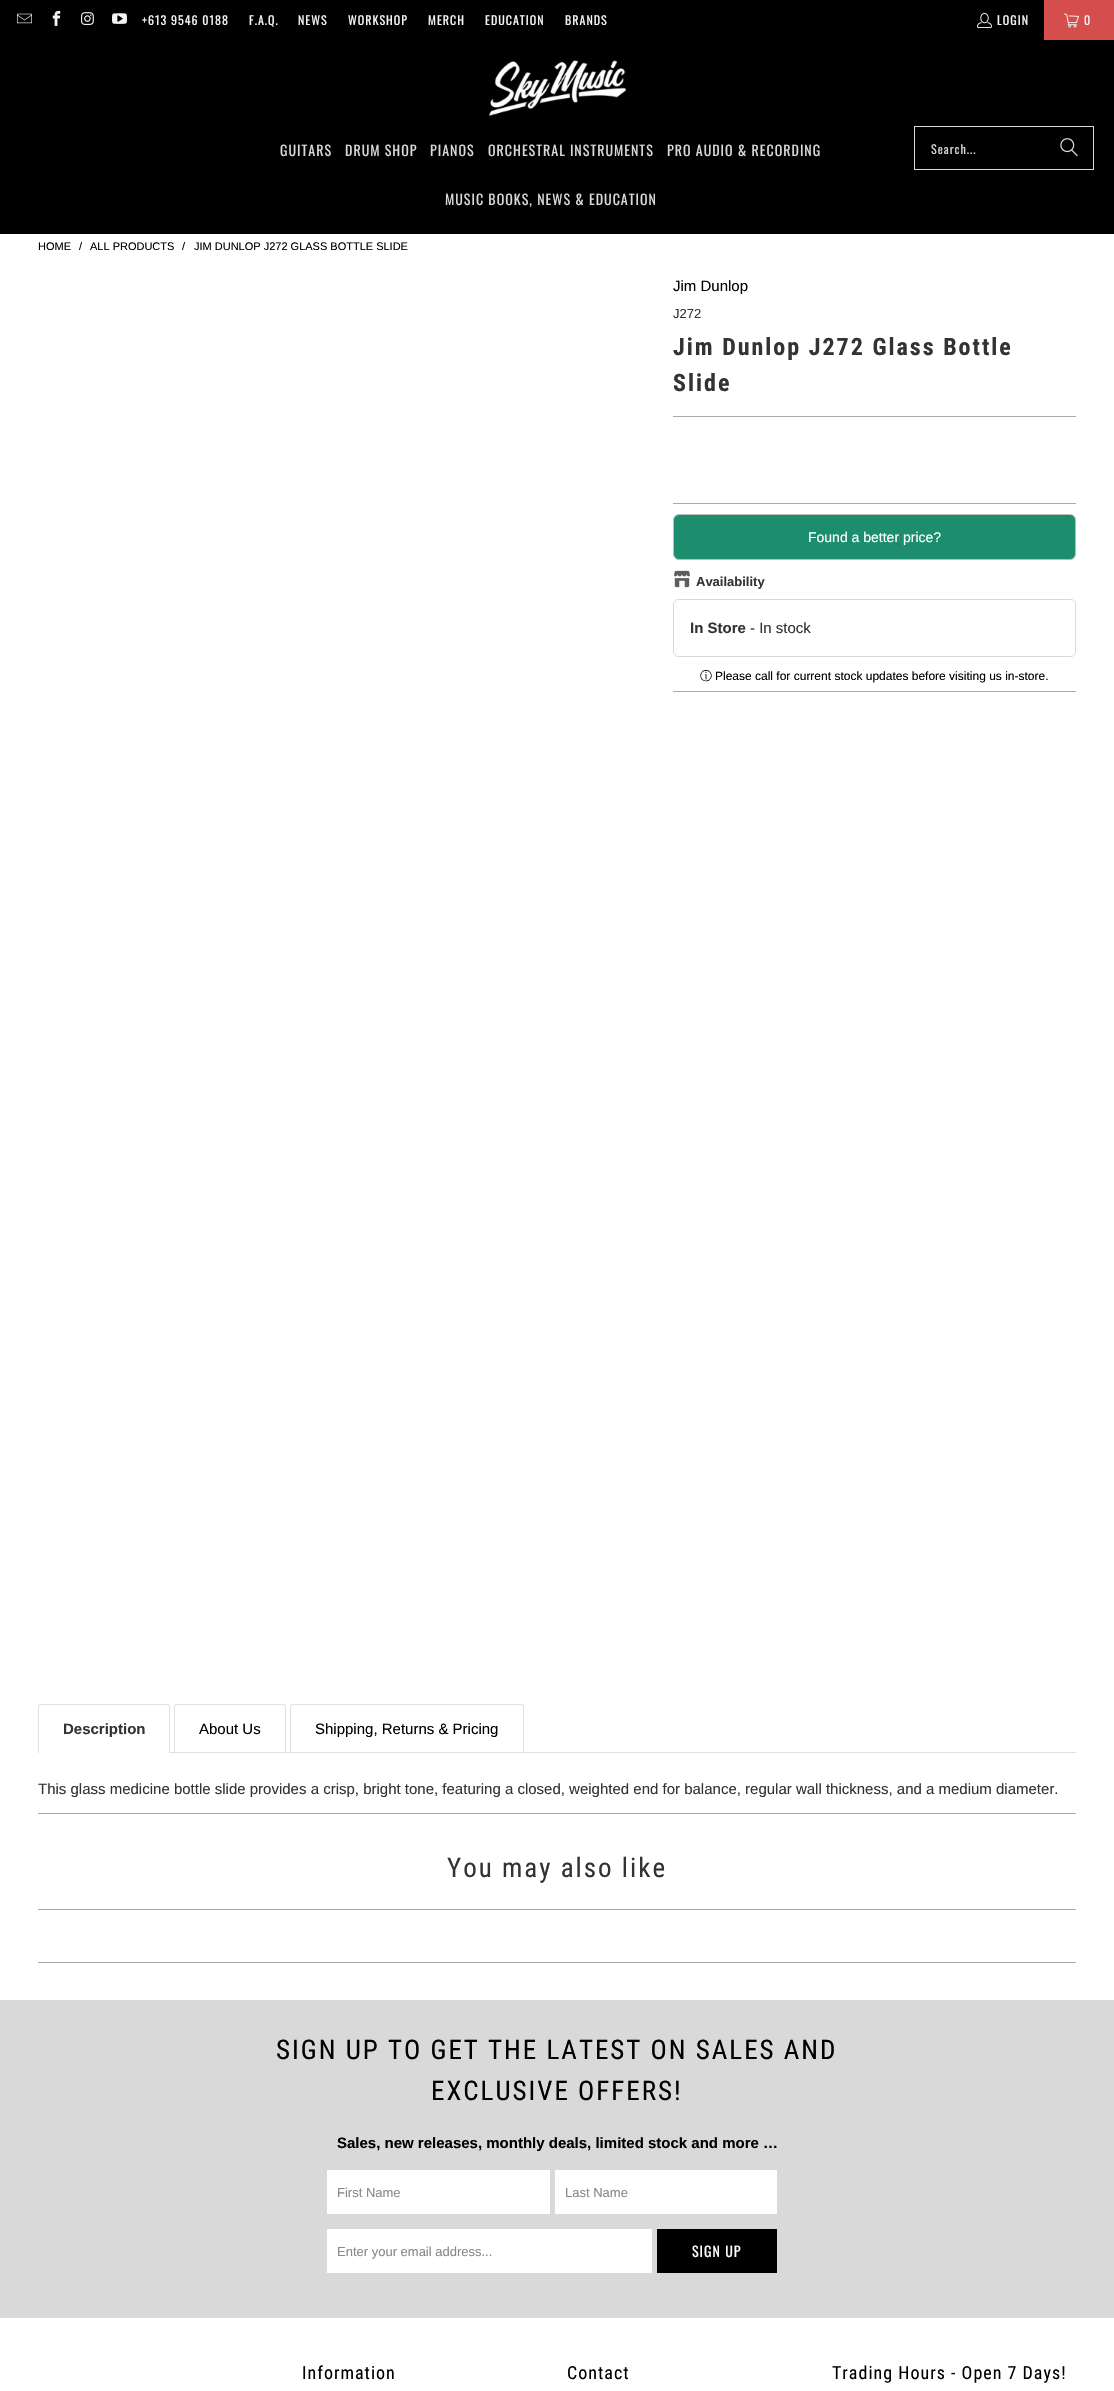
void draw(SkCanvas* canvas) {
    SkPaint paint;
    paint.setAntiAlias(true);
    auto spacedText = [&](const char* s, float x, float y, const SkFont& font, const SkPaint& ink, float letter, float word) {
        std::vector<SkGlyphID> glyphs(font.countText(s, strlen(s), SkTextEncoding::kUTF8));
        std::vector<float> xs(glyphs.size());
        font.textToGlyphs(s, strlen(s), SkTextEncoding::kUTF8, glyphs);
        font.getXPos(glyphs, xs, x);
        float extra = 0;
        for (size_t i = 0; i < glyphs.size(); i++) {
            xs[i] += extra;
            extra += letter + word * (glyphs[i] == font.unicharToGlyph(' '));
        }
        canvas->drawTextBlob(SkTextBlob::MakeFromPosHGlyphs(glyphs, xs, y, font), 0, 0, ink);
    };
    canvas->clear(0xFFFFFFFF);
    paint.setColor(0xFF000000);
    canvas->drawRect(SkRect::MakeXYWH(0, 0, 1044, 40), paint);
    canvas->drawImageRect(SkImages::DeferredFromEncodedData(SkData::MakeFromFileName("img1.png")), SkRect::MakeXYWH(17, 13, 15, 11), SkSamplingOptions());
    canvas->drawImageRect(SkImages::DeferredFromEncodedData(SkData::MakeFromFileName("img2.png")), SkRect::MakeXYWH(52, 10, 9, 16), SkSamplingOptions());
    canvas->drawImageRect(SkImages::DeferredFromEncodedData(SkData::MakeFromFileName("img3.png")), SkRect::MakeXYWH(81, 12, 13, 13), SkSamplingOptions());
    canvas->drawImageRect(SkImages::DeferredFromEncodedData(SkData::MakeFromFileName("img4.png")), SkRect::MakeXYWH(112, 13, 15, 11), SkSamplingOptions());
    SkFont font1(fontMgr->matchFamilyStyle("Oswald", SkFontStyle::Normal()), 12);
    font1.setSubpixel(true);
    paint.setColor(0xFFF4F4F4);
    spacedText("+613 9546 0188", 142, 25, font1, paint, 1, 0);
    spacedText("F.A.Q.", 249, 25, font1, paint, 1, 0);
    spacedText("NEWS", 298, 25, font1, paint, 1, 0);
    spacedText("WORKSHOP", 348, 25, font1, paint, 1, 0);
    spacedText("MERCH", 428, 25, font1, paint, 1, 0);
    spacedText("EDUCATION", 485, 25, font1, paint, 1, 0);
    spacedText("BRANDS", 565, 25, font1, paint, 1, 0);
    canvas->drawImageRect(SkImages::DeferredFromEncodedData(SkData::MakeFromFileName("img5.png")), SkRect::MakeXYWH(977, 12, 15, 16), SkSamplingOptions());
    spacedText("LOGIN", 997, 25, font1, paint, 1, 0);
    paint.setColor(0xFFD54D4D);
    canvas->drawRect(SkRect::MakeXYWH(1044, 0, 70, 40), paint);
    canvas->drawImageRect(SkImages::DeferredFromEncodedData(SkData::MakeFromFileName("img6.png")), SkRect::MakeXYWH(1064, 13, 15, 15), SkSamplingOptions());
    paint.setColor(0xFFF4F4F4);
    spacedText("0", 1084, 25, font1, paint, 1, 0);
    paint.setColor(0xFF000000);
    canvas->drawRect(SkRect::MakeXYWH(0, 40, 1114, 194), paint);
    canvas->drawImageRect(SkImages::DeferredFromEncodedData(SkData::MakeFromFileName("img7.png")), SkRect::MakeXYWH(489, 60, 137, 56), SkSamplingOptions());
    SkFont font2(fontMgr->matchFamilyStyle("Oswald", SkFontStyle::Normal()), 14);
    font2.setSubpixel(true);
    paint.setColor(0xFFD9D9D9);
    spacedText("GUITARS", 280, 156, font2, paint, 1, 0);
    spacedText("DRUM SHOP", 345, 156, font2, paint, 1, 0);
    spacedText("PIANOS", 430, 156, font2, paint, 1, 0);
    spacedText("ORCHESTRAL INSTRUMENTS", 488, 156, font2, paint, 1, 0);
    spacedText("PRO AUDIO & RECORDING", 667, 156, font2, paint, 1, 0);
    spacedText("MUSIC BOOKS, NEWS & EDUCATION", 445, 205, font2, paint, 1, 0);
    paint.setStyle(SkPaint::kStroke_Style);
    paint.setStrokeWidth(1);
    canvas->drawRect(SkRect::MakeXYWH(914.5f, 126.5f, 179, 43), paint);
    paint.setStyle(SkPaint::kFill_Style);
    spacedText("Search...", 931, 154, font1, paint, 1, 0);
    canvas->drawImageRect(SkImages::DeferredFromEncodedData(SkData::MakeFromFileName("img8.png")), SkRect::MakeXYWH(1060, 138, 18, 19), SkSamplingOptions());
    SkFont font3(fontMgr->matchFamilyStyle("Liberation Sans", SkFontStyle::Normal()), 11);
    font3.setSubpixel(true);
    paint.setColor(0xFF000000);
    canvas->drawString("HOME", 38, 250, font3, paint);
    canvas->drawString("/", 79, 250, font3, paint);
    canvas->drawString("ALL PRODUCTS", 90, 250, font3, paint);
    canvas->drawString("/", 182, 250, font3, paint);
    canvas->drawString("JIM DUNLOP J272 GLASS BOTTLE SLIDE", 194, 250, font3, paint);
    SkFont font4(fontMgr->matchFamilyStyle("Liberation Sans", SkFontStyle::Normal()), 15);
    font4.setSubpixel(true);
    canvas->drawString("Jim Dunlop", 673, 291, font4, paint);
    SkFont font5(fontMgr->matchFamilyStyle("Liberation Sans", SkFontStyle::Normal()), 13);
    font5.setSubpixel(true);
    paint.setColor(0xFF333333);
    canvas->drawString("J272", 673, 318, font5, paint);
    SkFont font6(fontMgr->matchFamilyStyle("Roboto Condensed", SkFontStyle::Bold()), 24);
    font6.setSubpixel(true);
    spacedText("Jim Dunlop J272 Glass Bottle", 673, 355, font6, paint, 2, 0);
    spacedText("Slide", 673, 391, font6, paint, 2, 0);
    paint.setColor(0xFFAAAAAA);
    canvas->drawRect(SkRect::MakeXYWH(673, 416, 403, 1), paint);
    paint.setColor(0xFFA9A9A9);
    canvas->drawRect(SkRect::MakeXYWH(673, 503, 403, 1), paint);
    paint.setColor(0xFF1C8E6E);
    canvas->drawRoundRect(SkRect::MakeXYWH(673.5f, 514.5f, 402, 45), 5.5f, 5.5f, paint);
    paint.setStyle(SkPaint::kStroke_Style);
    paint.setColor(0xFFBDBDBD);
    canvas->drawRoundRect(SkRect::MakeXYWH(673.5f, 514.5f, 402, 45), 5.5f, 5.5f, paint);
    SkFont font7(fontMgr->matchFamilyStyle("Liberation Sans", SkFontStyle::Normal()), 14);
    font7.setSubpixel(true);
    paint.setStyle(SkPaint::kFill_Style);
    paint.setColor(0xFFFFFFFF);
    canvas->drawString("Found a better price?", 808, 542, font7, paint);
    canvas->drawImageRect(SkImages::DeferredFromEncodedData(SkData::MakeFromFileName("img9.png")), SkRect::MakeXYWH(674, 570, 16, 18), SkSamplingOptions());
    SkFont font8(fontMgr->matchFamilyStyle("Liberation Sans", SkFontStyle::Bold()), 13);
    font8.setSubpixel(true);
    paint.setColor(0xFF333333);
    canvas->drawString("Availability", 696, 586, font8, paint);
    paint.setStyle(SkPaint::kStroke_Style);
    paint.setColor(0xFFD9D9D9);
    canvas->drawRoundRect(SkRect::MakeXYWH(673.5f, 599.5f, 402, 57), 4.5f, 4.5f, paint);
    SkFont font9(fontMgr->matchFamilyStyle("Liberation Sans", SkFontStyle::Bold()), 15);
    font9.setSubpixel(true);
    paint.setStyle(SkPaint::kFill_Style);
    paint.setColor(0xFF333333);
    canvas->drawString("In Store", 690, 633, font9, paint);
    canvas->drawString("- In stock", 750, 633, font4, paint);
    SkFont font10(fontMgr->matchFamilyStyle("WenQuanYi Zen Hei", SkFontStyle(500, SkFontStyle::kNormal_Width, SkFontStyle::kUpright_Slant)), 12);
    font10.setSubpixel(true);
    paint.setColor(0xFF000000);
    canvas->drawString("ⓘ", 700, 680, font10, paint);
    SkFont font11(fontMgr->matchFamilyStyle("Liberation Sans", SkFontStyle::Normal()), 12);
    font11.setSubpixel(true);
    canvas->drawString("Please call for current stock updates before visiting us in-store.", 715, 680, font11, paint);
    paint.setColor(0xFFA9A9A9);
    canvas->drawRect(SkRect::MakeXYWH(673, 691, 403, 1), paint);
    paint.setColor(0xFFE1E1E1);
    canvas->drawPath(SkPathBuilder(SkPathFillType::kEvenOdd).moveTo(41, 1704).lineTo(167, 1704).cubicTo(169, 1704, 170, 1705, 170, 1707).lineTo(170, 1753).lineTo(38, 1753).lineTo(38, 1707).cubicTo(38, 1705, 39, 1704, 41, 1704).close().moveTo(41, 1705).lineTo(167, 1705).cubicTo(168, 1705, 169, 1706, 169, 1707).lineTo(169, 1753).lineTo(39, 1753).lineTo(39, 1707).cubicTo(39, 1706, 40, 1705, 41, 1705).close().detach(), paint);
    paint.setColor(0xFF333333);
    canvas->drawString("Description", 63, 1734, font9, paint);
    paint.setColor(0xFFE1E1E1);
    canvas->drawRect(SkRect::MakeXYWH(170, 1752, 906, 1), paint);
    canvas->drawPath(SkPathBuilder(SkPathFillType::kEvenOdd).moveTo(177, 1704).lineTo(283, 1704).cubicTo(285, 1704, 286, 1705, 286, 1707).lineTo(286, 1753).lineTo(174, 1753).lineTo(174, 1707).cubicTo(174, 1705, 175, 1704, 177, 1704).close().moveTo(177, 1705).lineTo(283, 1705).cubicTo(284, 1705, 285, 1706, 285, 1707).lineTo(285, 1753).lineTo(175, 1753).lineTo(175, 1707).cubicTo(175, 1706, 176, 1705, 177, 1705).close().detach(), paint);
    paint.setColor(0xFF000000);
    canvas->drawString("About Us", 199, 1734, font4, paint);
    paint.setColor(0xFFE1E1E1);
    canvas->drawPath(SkPathBuilder(SkPathFillType::kEvenOdd).moveTo(293, 1704).lineTo(521, 1704).cubicTo(523, 1704, 524, 1705, 524, 1707).lineTo(524, 1753).lineTo(290, 1753).lineTo(290, 1707).cubicTo(290, 1705, 291, 1704, 293, 1704).close().moveTo(293, 1705).lineTo(521, 1705).cubicTo(522, 1705, 523, 1706, 523, 1707).lineTo(523, 1753).lineTo(291, 1753).lineTo(291, 1707).cubicTo(291, 1706, 292, 1705, 293, 1705).close().detach(), paint);
    paint.setColor(0xFF000000);
    canvas->drawString("Shipping, Returns & Pricing", 315, 1734, font4, paint);
    paint.setColor(0xFF333333);
    canvas->drawString("This glass medicine bottle slide provides a crisp, bright tone, featuring a closed, weighted end for balance, regular wall thickness, and a medium diameter.", 38, 1794, font4, paint);
    paint.setColor(0xFFAAAAAA);
    canvas->drawRect(SkRect::MakeXYWH(38, 1813, 1038, 1), paint);
    SkFont font12(fontMgr->matchFamilyStyle("Roboto Condensed", SkFontStyle::Normal()), 27);
    font12.setSubpixel(true);
    paint.setColor(0xFF333333);
    spacedText("You may also like", 447, 1877, font12, paint, 2, 0);
    paint.setColor(0xFFAAAAAA);
    canvas->drawRect(SkRect::MakeXYWH(38, 1909, 1038, 1), paint);
    canvas->drawRect(SkRect::MakeXYWH(38, 1962, 1038, 1), paint);
    paint.setColor(0xFFD9D9D9);
    canvas->drawRect(SkRect::MakeXYWH(0, 2000, 1114, 318), paint);
    paint.setColor(0xFF000000);
    spacedText("SIGN UP TO GET THE LATEST ON SALES AND", 276, 2059, font12, paint, 2, 0);
    spacedText("EXCLUSIVE OFFERS!", 431, 2100, font12, paint, 2, 0);
    canvas->drawString("Sales, new releases, monthly deals, limited stock and more …", 337, 2148, font9, paint);
    paint.setColor(0xFFFFFFFF);
    canvas->drawRect(SkRect::MakeXYWH(327, 2170, 223, 44), paint);
    paint.setColor(0xFF888888);
    canvas->drawString("First Name", 337, 2197, font5, paint);
    paint.setColor(0xFFFFFFFF);
    canvas->drawRect(SkRect::MakeXYWH(555, 2170, 222, 44), paint);
    paint.setColor(0xFF888888);
    canvas->drawString("Last Name", 565, 2197, font5, paint);
    paint.setColor(0xFFFFFFFF);
    canvas->drawRect(SkRect::MakeXYWH(327, 2229, 325, 44), paint);
    paint.setColor(0xFF888888);
    canvas->drawString("Enter your email address...", 337, 2256, font5, paint);
    paint.setColor(0xFF000000);
    canvas->drawRect(SkRect::MakeXYWH(657, 2229, 120, 44), paint);
    paint.setColor(0xFFFFFFFF);
    spacedText("SIGN UP", 692, 2257, font2, paint, 1, 0);
    SkFont font13(fontMgr->matchFamilyStyle("Roboto Condensed", SkFontStyle::Normal()), 18);
    font13.setSubpixel(true);
    paint.setColor(0xFF000000);
    spacedText("Information", 302, 2379, font13, paint, 1, 0);
    spacedText("Contact", 567, 2379, font13, paint, 1, 0);
    spacedText("Trading Hours - Open 7 Days!", 832, 2379, font13, paint, 1, 0);
}
